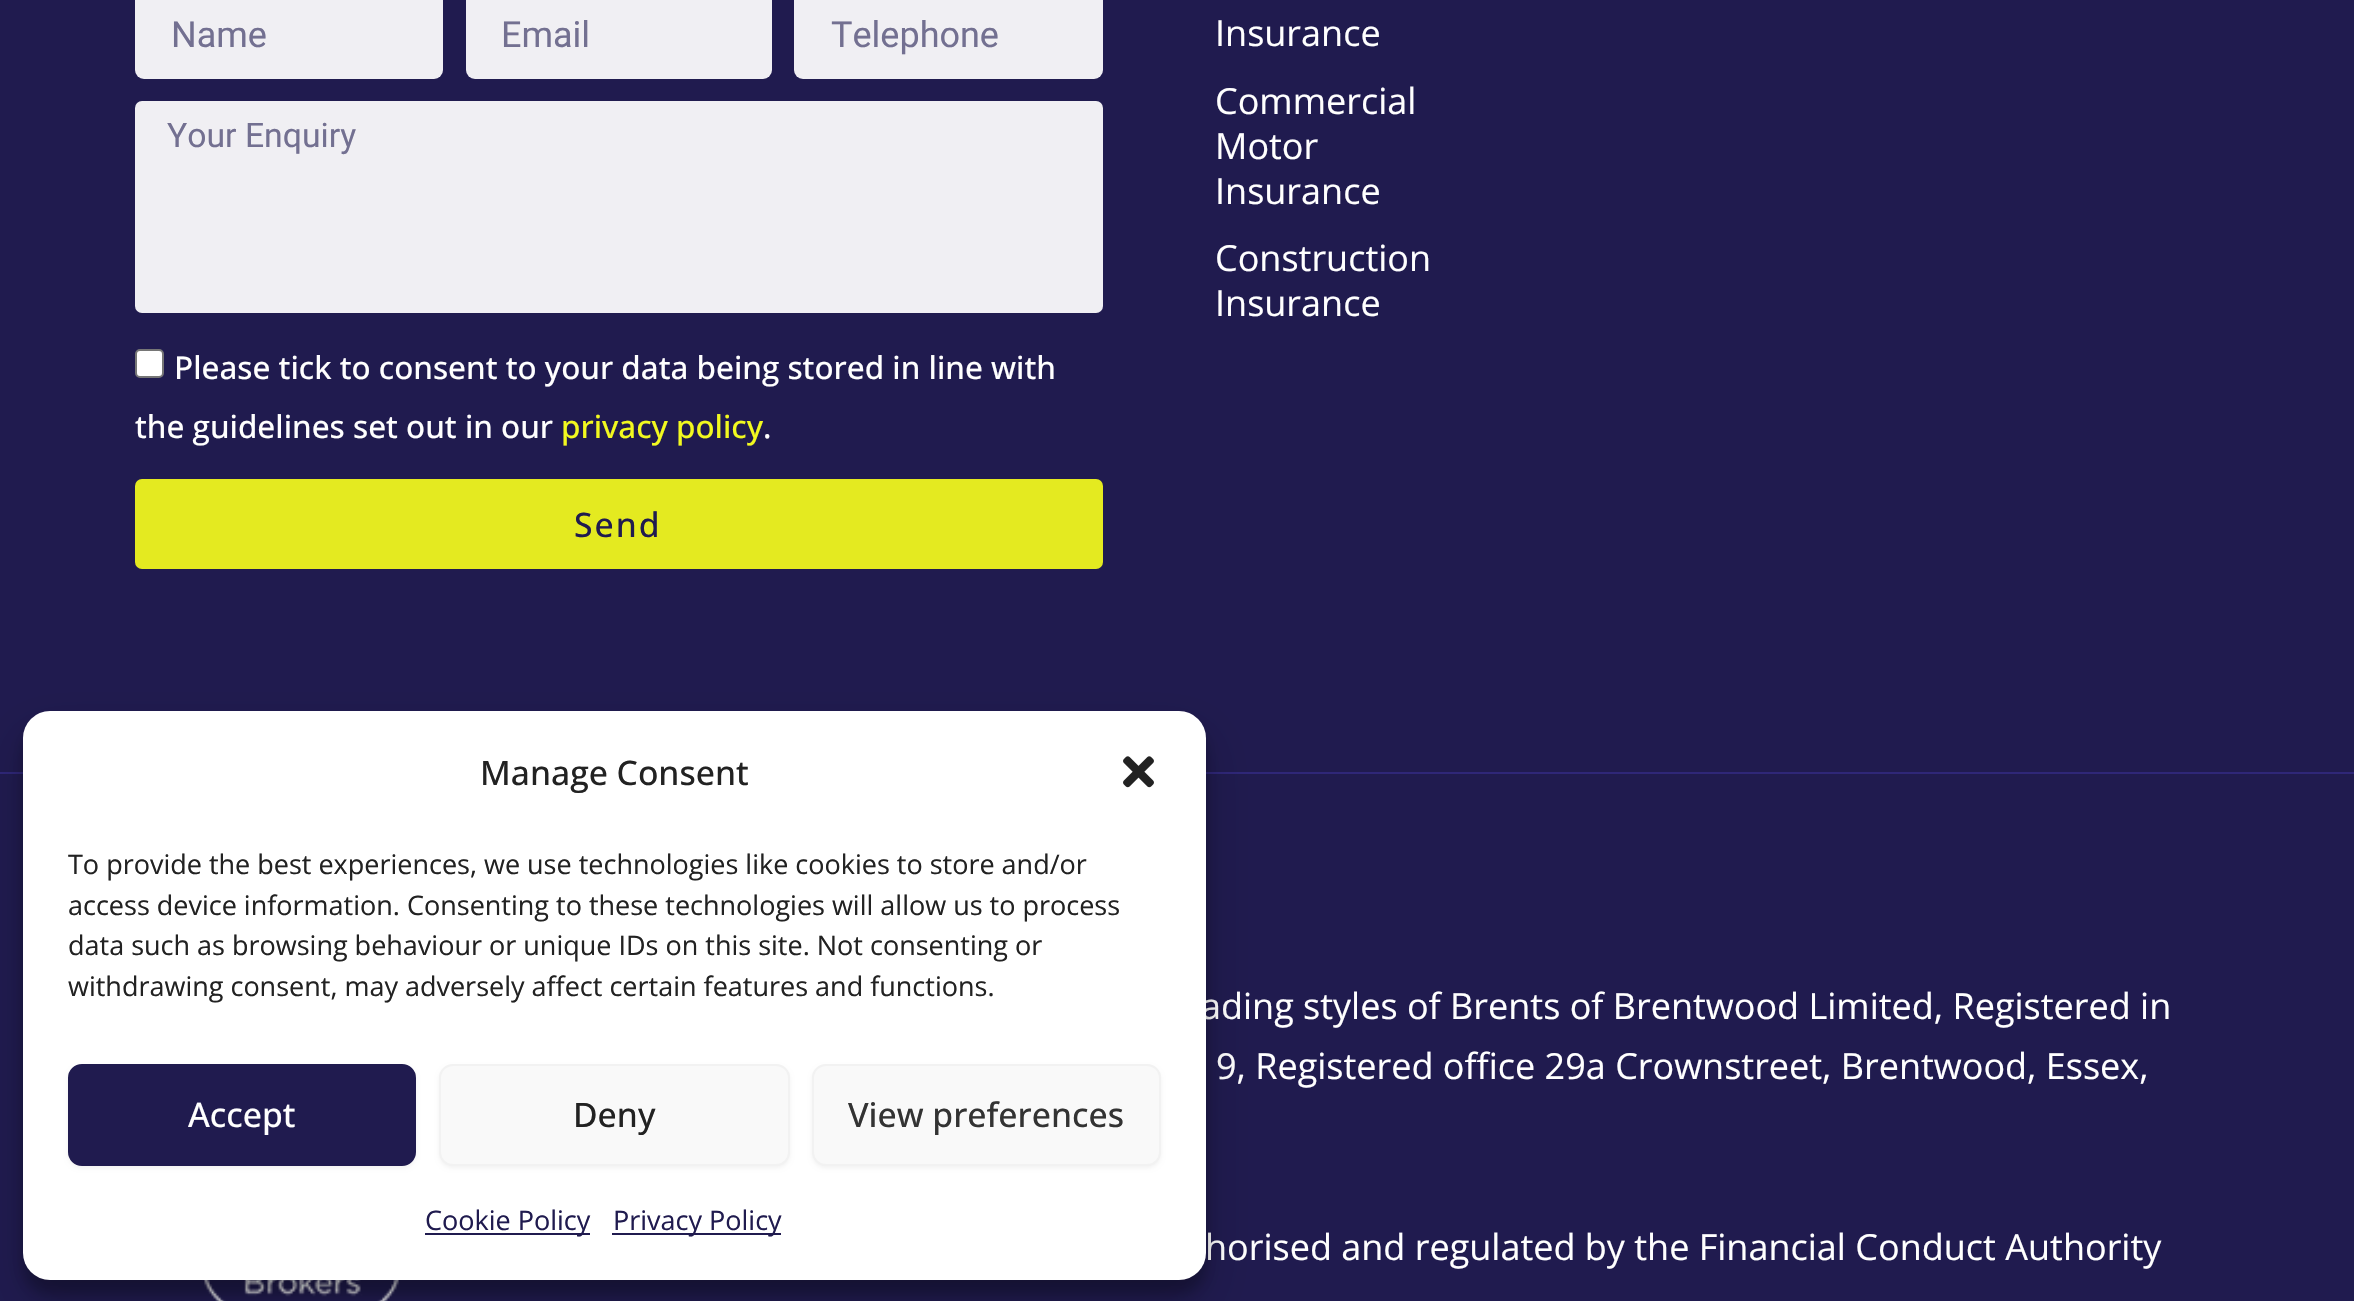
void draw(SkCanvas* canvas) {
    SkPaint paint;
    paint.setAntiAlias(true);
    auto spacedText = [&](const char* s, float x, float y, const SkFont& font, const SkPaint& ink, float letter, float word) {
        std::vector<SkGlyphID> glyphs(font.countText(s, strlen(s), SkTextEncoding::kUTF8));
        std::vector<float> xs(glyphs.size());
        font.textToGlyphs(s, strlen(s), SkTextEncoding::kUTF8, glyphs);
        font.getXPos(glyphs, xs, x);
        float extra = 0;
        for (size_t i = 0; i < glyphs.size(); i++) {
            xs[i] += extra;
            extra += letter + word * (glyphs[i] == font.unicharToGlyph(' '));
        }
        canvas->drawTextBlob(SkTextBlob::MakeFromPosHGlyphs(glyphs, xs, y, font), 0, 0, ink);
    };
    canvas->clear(0xFF201B4F);
    paint.setColor(0xFFF0EFF3);
    canvas->drawRoundRect(SkRect::MakeXYWH(135, -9, 308, 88), 9, 9, paint);
    SkFont font1(fontMgr->matchFamilyStyle("Roboto", SkFontStyle::Normal()), 36);
    font1.setSubpixel(true);
    paint.setColor(0xFF737091);
    canvas->drawString("Name", 171, 47, font1, paint);
    paint.setColor(0xFFF0EFF3);
    canvas->drawRoundRect(SkRect::MakeXYWH(466, -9, 306, 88), 9, 9, paint);
    paint.setColor(0xFF737091);
    canvas->drawString("Email", 501, 47, font1, paint);
    paint.setColor(0xFFF0EFF3);
    canvas->drawRoundRect(SkRect::MakeXYWH(794, -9, 309, 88), 9, 9, paint);
    paint.setColor(0xFF737091);
    canvas->drawString("Telephone", 831, 47, font1, paint);
    paint.setColor(0xFFF0EFF3);
    canvas->drawRoundRect(SkRect::MakeXYWH(135, 101, 968, 212), 7, 7, paint);
    SkFont font2(fontMgr->matchFamilyStyle("Roboto", SkFontStyle::Normal()), 33.75f);
    font2.setSubpixel(true);
    paint.setColor(0xFF737091);
    canvas->drawString("Your Enquiry", 167, 147, font2, paint);
    paint.setColor(0xFFFFFFFF);
    canvas->drawRoundRect(SkRect::MakeXYWH(136, 350, 27, 27), 4, 4, paint);
    paint.setStyle(SkPaint::kStroke_Style);
    paint.setStrokeWidth(2);
    paint.setColor(0xFF767676);
    canvas->drawRoundRect(SkRect::MakeXYWH(136, 350, 27, 27), 4, 4, paint);
    SkFont font3(fontMgr->matchFamilyStyle("Open Sans", SkFontStyle(500, SkFontStyle::kNormal_Width, SkFontStyle::kUpright_Slant)), 31.5f);
    font3.setSubpixel(true);
    paint.setStyle(SkPaint::kFill_Style);
    paint.setColor(0xFFFFFFFF);
    canvas->drawString("Please tick to consent to your data being stored in line with", 174, 379, font3, paint);
    canvas->drawString("the guidelines set out in our", 135, 438, font3, paint);
    paint.setColor(0xFFF2F91F);
    canvas->drawString("privacy policy", 561, 438, font3, paint);
    paint.setColor(0xFFFFFFFF);
    canvas->drawString(".", 763, 438, font3, paint);
    paint.setColor(0xFFE4EA20);
    canvas->drawRoundRect(SkRect::MakeXYWH(135, 479, 968, 90), 7, 7, paint);
    SkFont font4(fontMgr->matchFamilyStyle("Open Sans", SkFontStyle(500, SkFontStyle::kNormal_Width, SkFontStyle::kUpright_Slant)), 33.75f);
    font4.setSubpixel(true);
    paint.setColor(0xFF201B4F);
    spacedText("Send", 574, 537, font4, paint, 2, 0);
    SkFont font5(fontMgr->matchFamilyStyle("Open Sans", SkFontStyle::Normal()), 36);
    font5.setSubpixel(true);
    paint.setColor(0xFFFFFFFF);
    canvas->drawString("Insurance", 1215, 46, font5, paint);
    canvas->drawString("Commercial", 1215, 114, font5, paint);
    canvas->drawString("Motor", 1215, 159, font5, paint);
    canvas->drawString("Insurance", 1215, 204, font5, paint);
    canvas->drawString("Construction", 1215, 271, font5, paint);
    canvas->drawString("Insurance", 1215, 316, font5, paint);
    paint.setColor(0xFF2F2778);
    canvas->drawRect(SkRect::MakeXYWH(0, 772, 2354, 2), paint);
    paint.setColor(0xFFFFFFFF);
    canvas->drawString("ading styles of Brents of Brentwood Limited, Registered in", 1201, 1019, font5, paint);
    canvas->drawString("9, Registered office 29a Crownstreet, Brentwood, Essex,", 1216, 1079, font5, paint);
    canvas->drawString("horised and regulated by the Financial Conduct Authority", 1205, 1260, font5, paint);
    canvas->drawImageRect(SkImages::DeferredFromEncodedData(SkData::MakeFromFileName("img1.png")), SkRect::MakeXYWH(202, 1280, 197, 21), SkSamplingOptions());
    paint.setColor(0x3B000000);
    paint.setMaskFilter(SkMaskFilter::MakeBlur(kNormal_SkBlurStyle, 7));
    canvas->drawRoundRect(SkRect::MakeXYWH(23, 725, 1183, 569), 27, 27, paint);
    paint.setMaskFilter(nullptr);
    paint.setColor(0x30000000);
    paint.setMaskFilter(SkMaskFilter::MakeBlur(kNormal_SkBlurStyle, 22.5f));
    canvas->drawRoundRect(SkRect::MakeXYWH(23, 734, 1183, 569), 27, 27, paint);
    paint.setMaskFilter(nullptr);
    paint.setColor(0xFFFFFFFF);
    canvas->drawRoundRect(SkRect::MakeXYWH(23, 711, 1183, 569), 27, 27, paint);
    paint.setColor(0xFF222222);
    canvas->drawString("Manage Consent", 480, 785, font4, paint);
    canvas->drawImageRect(SkImages::DeferredFromEncodedData(SkData::MakeFromFileName("img2.png")), SkRect::MakeXYWH(1123, 756, 31, 32), SkSamplingOptions());
    canvas->save();
    canvas->clipRect(SkRect::MakeXYWH(68, 846, 1093, 173));
    SkFont font6(fontMgr->matchFamilyStyle("Open Sans", SkFontStyle::Normal()), 27);
    font6.setSubpixel(true);
    canvas->drawString("To provide the best experiences, we use technologies like cookies to store and/or", 68, 874, font6, paint);
    canvas->restore();
    canvas->drawString("access device information. Consenting to these technologies will allow us to process", 68, 915, font6, paint);
    canvas->drawString("data such as browsing behaviour or unique IDs on this site. Not consenting or", 68, 955, font6, paint);
    canvas->drawString("withdrawing consent, may adversely affect certain features and functions.", 68, 996, font6, paint);
    paint.setColor(0x0D000000);
    paint.setMaskFilter(SkMaskFilter::MakeBlur(kNormal_SkBlurStyle, 2));
    canvas->drawRoundRect(SkRect::MakeXYWH(68, 1067, 348, 101), 14, 14, paint);
    paint.setMaskFilter(nullptr);
    paint.setColor(0xFF201B4F);
    canvas->drawRoundRect(SkRect::MakeXYWH(69, 1065, 346, 100), 13, 13, paint);
    paint.setStyle(SkPaint::kStroke_Style);
    canvas->drawRoundRect(SkRect::MakeXYWH(69, 1065, 346, 100), 13, 13, paint);
    paint.setStyle(SkPaint::kFill_Style);
    paint.setColor(0xFFFFFFFF);
    canvas->drawString("Accept", 188, 1127, font4, paint);
    paint.setColor(0x0D000000);
    paint.setMaskFilter(SkMaskFilter::MakeBlur(kNormal_SkBlurStyle, 2));
    canvas->drawRoundRect(SkRect::MakeXYWH(439, 1067, 351, 101), 14, 14, paint);
    paint.setMaskFilter(nullptr);
    paint.setColor(0xFFF9F9F9);
    canvas->drawRoundRect(SkRect::MakeXYWH(440, 1065, 349, 100), 13, 13, paint);
    paint.setStyle(SkPaint::kStroke_Style);
    paint.setColor(0xFFF2F2F2);
    canvas->drawRoundRect(SkRect::MakeXYWH(440, 1065, 349, 100), 13, 13, paint);
    paint.setStyle(SkPaint::kFill_Style);
    paint.setColor(0xFF222222);
    canvas->drawString("Deny", 573, 1127, font4, paint);
    paint.setColor(0x0D000000);
    paint.setMaskFilter(SkMaskFilter::MakeBlur(kNormal_SkBlurStyle, 2));
    canvas->drawRoundRect(SkRect::MakeXYWH(812, 1067, 349, 101), 14, 14, paint);
    paint.setMaskFilter(nullptr);
    paint.setColor(0xFFF9F9F9);
    canvas->drawRoundRect(SkRect::MakeXYWH(813, 1065, 347, 100), 13, 13, paint);
    paint.setStyle(SkPaint::kStroke_Style);
    paint.setColor(0xFFF2F2F2);
    canvas->drawRoundRect(SkRect::MakeXYWH(813, 1065, 347, 100), 13, 13, paint);
    paint.setStyle(SkPaint::kFill_Style);
    paint.setColor(0xFF333333);
    canvas->drawString("View preferences", 848, 1127, font4, paint);
    paint.setColor(0xFF201B4F);
    canvas->drawRect(SkRect::MakeXYWH(425, 1233, 165, 2), paint);
    canvas->drawString("Cookie Policy", 425, 1230, font6, paint);
    canvas->drawRect(SkRect::MakeXYWH(612, 1233, 169, 2), paint);
    canvas->drawString("Privacy Policy", 613, 1230, font6, paint);
}
